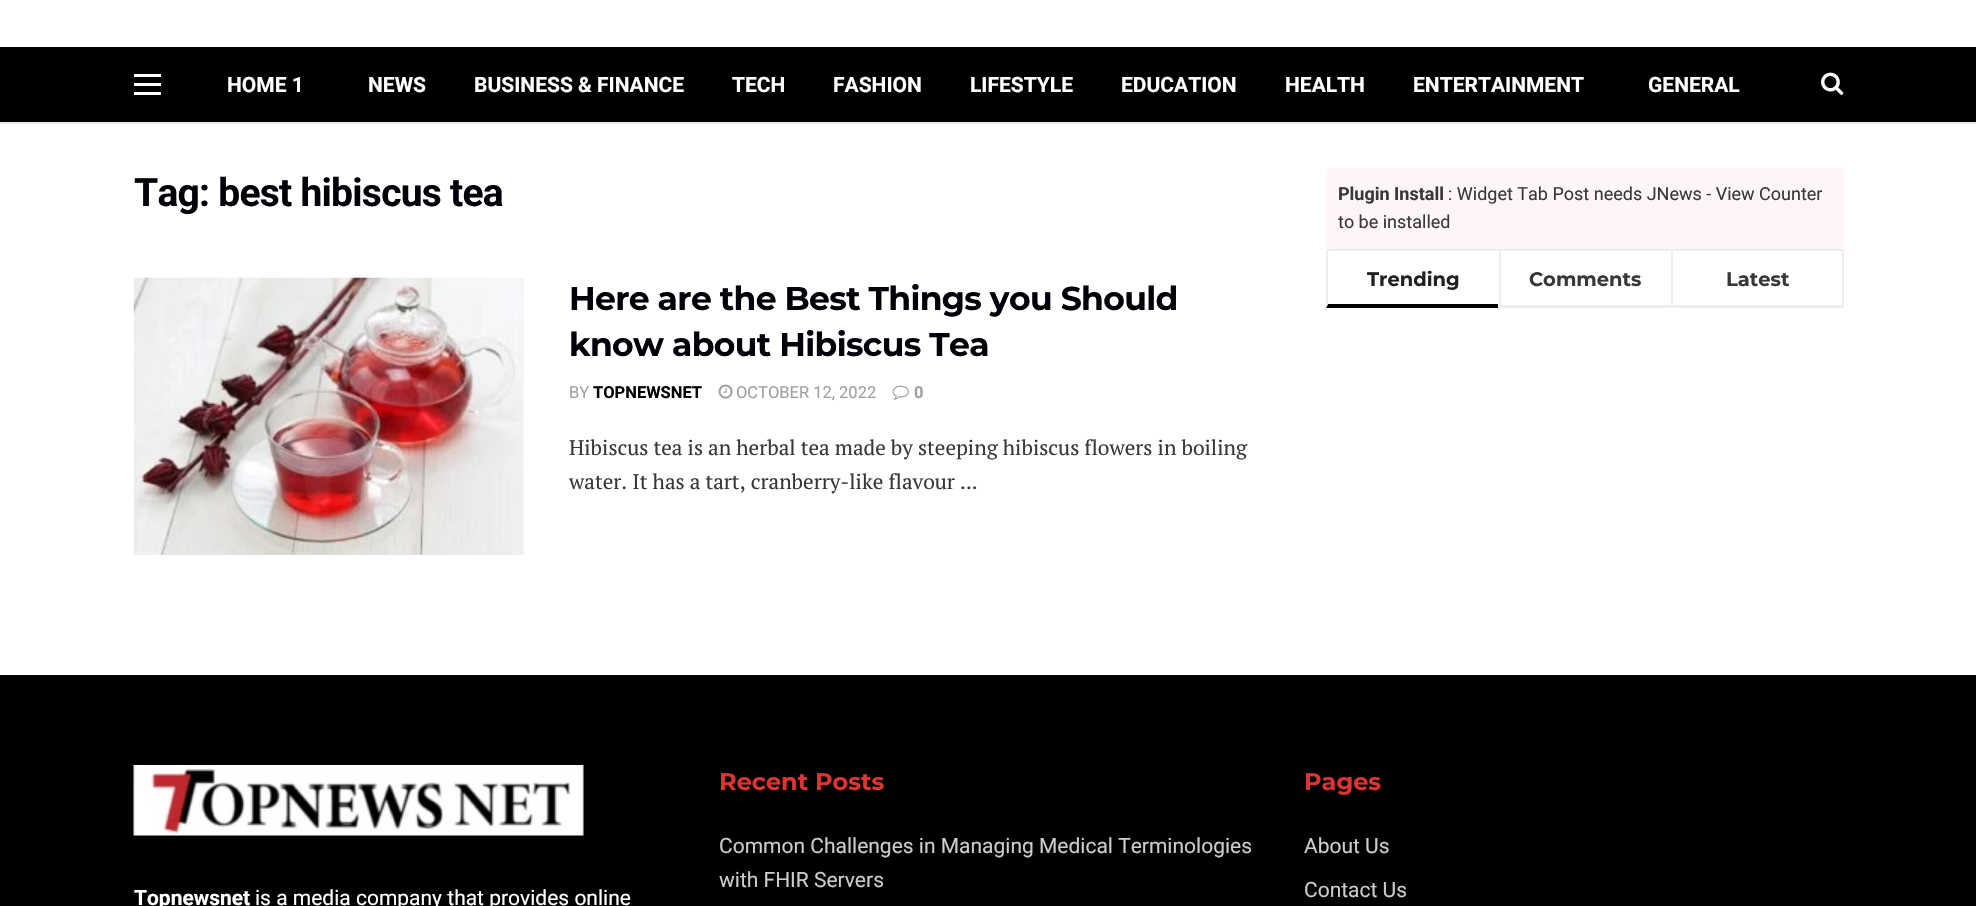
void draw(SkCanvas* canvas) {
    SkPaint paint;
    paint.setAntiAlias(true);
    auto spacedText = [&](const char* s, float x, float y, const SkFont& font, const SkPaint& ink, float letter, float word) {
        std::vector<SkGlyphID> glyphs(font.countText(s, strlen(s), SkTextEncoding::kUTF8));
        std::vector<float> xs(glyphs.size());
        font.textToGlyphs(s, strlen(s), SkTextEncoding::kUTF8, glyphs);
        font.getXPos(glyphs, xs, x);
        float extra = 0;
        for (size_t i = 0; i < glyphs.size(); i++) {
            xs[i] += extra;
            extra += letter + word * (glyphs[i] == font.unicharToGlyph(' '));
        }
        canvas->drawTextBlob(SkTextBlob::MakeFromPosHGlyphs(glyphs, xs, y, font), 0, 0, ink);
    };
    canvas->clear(0xFFFFFFFF);
    paint.setColor(0xFF000000);
    canvas->drawRect(SkRect::MakeXYWH(0, 47, 1976, 75), paint);
    paint.setColor(0xFFE8E8E8);
    canvas->drawRect(SkRect::MakeXYWH(0, 122, 1976, 2), paint);
    paint.setColor(0xFFFFFFFF);
    canvas->drawRect(SkRect::MakeXYWH(134, 74, 27, 3), paint);
    canvas->drawRect(SkRect::MakeXYWH(134, 83, 27, 3), paint);
    canvas->drawRect(SkRect::MakeXYWH(134, 92, 27, 3), paint);
    SkFont font1(fontMgr->matchFamilyStyle("Roboto", SkFontStyle::Bold()), 21);
    font1.setSubpixel(true);
    canvas->drawString("HOME 1", 227, 92, font1, paint);
    canvas->drawString("NEWS", 368, 92, font1, paint);
    canvas->drawString("BUSINESS & FINANCE", 474, 92, font1, paint);
    canvas->drawString("TECH", 732, 92, font1, paint);
    canvas->drawString("FASHION", 833, 92, font1, paint);
    canvas->drawString("LIFESTYLE", 970, 92, font1, paint);
    canvas->drawString("EDUCATION", 1121, 92, font1, paint);
    canvas->drawString("HEALTH", 1285, 92, font1, paint);
    canvas->drawString("ENTERTAINMENT", 1413, 92, font1, paint);
    canvas->drawString("GENERAL", 1648, 92, font1, paint);
    canvas->drawImageRect(SkImages::DeferredFromEncodedData(SkData::MakeFromFileName("img1.png")), SkRect::MakeXYWH(1821, 72, 23, 23), SkSamplingOptions());
    SkFont font2(fontMgr->matchFamilyStyle("Roboto", SkFontStyle::Bold()), 39);
    font2.setSubpixel(true);
    paint.setColor(0xFF02010A);
    spacedText("Tag: best hibiscus tea", 134, 206, font2, paint, -0.75f, 0);
    paint.setColor(0xFFF7F7F7);
    canvas->drawRect(SkRect::MakeXYWH(523, 278, 1, 277), paint);
    canvas->drawImageRect(SkImages::DeferredFromEncodedData(SkData::MakeFromFileName("img3.png")), SkRect::MakeXYWH(177, 277, 77, 1), SkSamplingOptions());
    canvas->drawImageRect(SkImages::DeferredFromEncodedData(SkData::MakeFromFileName("img2.png")), SkRect::MakeXYWH(133, 277, 390, 278), SkSamplingOptions());
    SkFont font3(fontMgr->matchFamilyStyle("Montserrat", SkFontStyle::Bold()), 33);
    font3.setSubpixel(true);
    paint.setColor(0xFF02010A);
    spacedText("Here are the Best Things you Should", 569, 310, font3, paint, -0.65f, 0);
    spacedText("know about Hibiscus Tea", 569, 356, font3, paint, -0.65f, 0);
    SkFont font4(fontMgr->matchFamilyStyle("Roboto", SkFontStyle::Normal()), 16.5f);
    font4.setSubpixel(true);
    paint.setColor(0xFFA0A0A0);
    canvas->drawString("BY", 569, 398, font4, paint);
    SkFont font5(fontMgr->matchFamilyStyle("Roboto", SkFontStyle::Bold()), 16.5f);
    font5.setSubpixel(true);
    paint.setColor(0xFF000000);
    canvas->drawString("TOPNEWSNET", 593, 398, font5, paint);
    canvas->drawImageRect(SkImages::DeferredFromEncodedData(SkData::MakeFromFileName("img4.png")), SkRect::MakeXYWH(718, 384, 15, 15), SkSamplingOptions());
    paint.setColor(0xFFA0A0A0);
    canvas->drawString("OCTOBER 12, 2022", 736, 398, font4, paint);
    canvas->drawImageRect(SkImages::DeferredFromEncodedData(SkData::MakeFromFileName("img5.png")), SkRect::MakeXYWH(892, 385, 17, 15), SkSamplingOptions());
    canvas->drawString("0", 914, 398, font5, paint);
    SkFont font6(fontMgr->matchFamilyStyle("PT Serif", SkFontStyle::Normal()), 21);
    font6.setSubpixel(true);
    paint.setColor(0xFF383838);
    canvas->drawString("Hibiscus tea is an herbal tea made by steeping hibiscus flowers in boiling", 569, 455, font6, paint);
    canvas->drawString("water. It has a tart, cranberry-like flavour ...", 569, 489, font6, paint);
    paint.setColor(0xFFFFF5F6);
    canvas->drawRoundRect(SkRect::MakeXYWH(1326, 168, 518, 81), 5, 5, paint);
    SkFont font7(fontMgr->matchFamilyStyle("Roboto", SkFontStyle::Bold()), 18);
    font7.setSubpixel(true);
    paint.setColor(0xFF383838);
    canvas->drawString("Plugin Install", 1338, 200, font7, paint);
    SkFont font8(fontMgr->matchFamilyStyle("Roboto", SkFontStyle::Normal()), 18);
    font8.setSubpixel(true);
    canvas->drawString(": Widget Tab Post needs JNews - View Counter", 1448, 200, font8, paint);
    canvas->drawString("to be installed", 1338, 228, font8, paint);
    paint.setColor(0xFFEEEEEE);
    canvas->drawRect(SkRect::MakeXYWH(1326, 249, 518, 2), paint);
    paint.setColor(0xFF000000);
    canvas->drawPath(SkPathBuilder().moveTo(1498, 308).lineTo(1326, 308).lineTo(1328, 304).lineTo(1498, 304).close().detach(), paint);
    paint.setColor(0xFFEEEEEE);
    canvas->drawPath(SkPathBuilder().moveTo(1326, 308).lineTo(1326, 249).lineTo(1328, 250).lineTo(1328, 304).close().detach(), paint);
    SkFont font9(fontMgr->matchFamilyStyle("Montserrat", SkFontStyle::Bold()), 19.5f);
    font9.setSubpixel(true);
    paint.setColor(0xFF212121);
    canvas->drawString("Trending", 1367, 286, font9, paint);
    paint.setColor(0xFFEEEEEE);
    canvas->drawRect(SkRect::MakeXYWH(1499, 305, 172, 3), paint);
    canvas->drawRect(SkRect::MakeXYWH(1499, 249, 2, 59), paint);
    paint.setColor(0xFF383838);
    canvas->drawString("Comments", 1529, 286, font9, paint);
    paint.setColor(0xFFEEEEEE);
    canvas->drawRect(SkRect::MakeXYWH(1842, 249, 2, 59), paint);
    canvas->drawRect(SkRect::MakeXYWH(1671, 305, 173, 3), paint);
    canvas->drawRect(SkRect::MakeXYWH(1671, 249, 2, 59), paint);
    paint.setColor(0xFF383838);
    canvas->drawString("Latest", 1726, 286, font9, paint);
    paint.setColor(0xFF000000);
    canvas->drawRect(SkRect::MakeXYWH(0, 675, 1976, 231), paint);
    canvas->drawImageRect(SkImages::DeferredFromEncodedData(SkData::MakeFromFileName("img6.png")), SkRect::MakeXYWH(133, 765, 451, 71), SkSamplingOptions());
    paint.setColor(0xFFFFFFFF);
    canvas->drawString("Topnewsnet", 134, 905, font1, paint);
    SkFont font10(fontMgr->matchFamilyStyle("Roboto", SkFontStyle::Normal()), 21);
    font10.setSubpixel(true);
    canvas->drawString("is a media company that provides online", 255, 905, font10, paint);
    SkFont font11(fontMgr->matchFamilyStyle("Montserrat", SkFontStyle::Bold()), 24);
    font11.setSubpixel(true);
    paint.setColor(0xFFDD3333);
    canvas->drawString("Recent Posts", 719, 790, font11, paint);
    paint.setColor(0xFFCCCCCC);
    canvas->drawString("Common Challenges in Managing Medical Terminologies", 719, 853, font10, paint);
    canvas->drawString("with FHIR Servers", 719, 887, font10, paint);
    paint.setColor(0xFFDD3333);
    canvas->drawString("Pages", 1304, 790, font11, paint);
    paint.setColor(0xFFCCCCCC);
    canvas->drawString("About Us", 1304, 853, font10, paint);
    canvas->drawString("Contact Us", 1304, 897, font10, paint);
}
